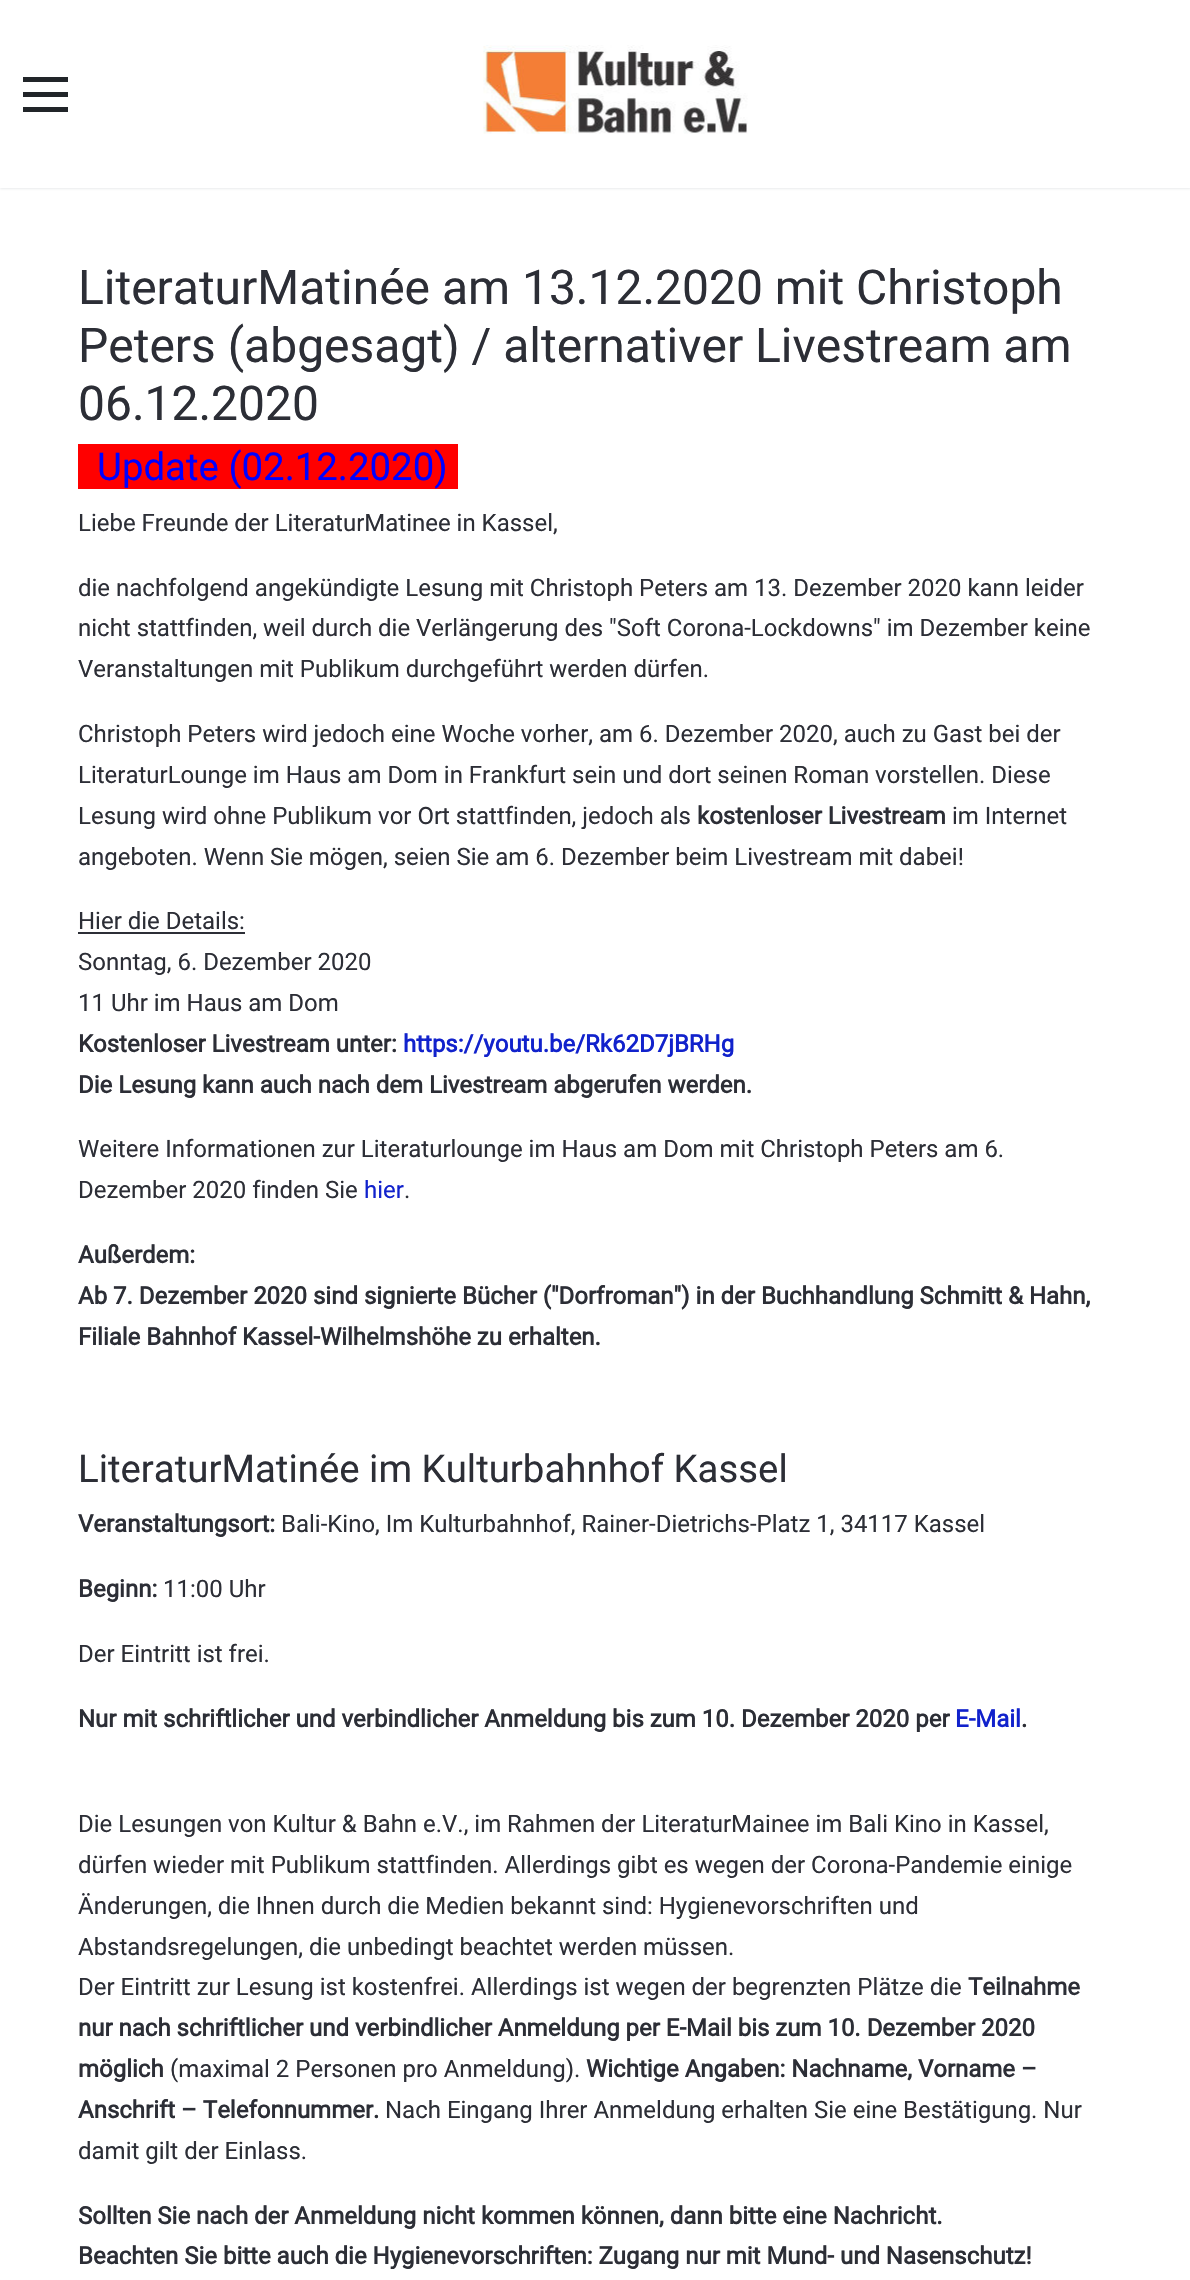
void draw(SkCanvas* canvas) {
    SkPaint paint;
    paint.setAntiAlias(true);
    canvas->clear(0xFFFFFFFF);
    paint.setColor(0x33384554);
    paint.setMaskFilter(SkMaskFilter::MakeBlur(kNormal_SkBlurStyle, 1.5f));
    canvas->drawRect(SkRect::MakeXYWH(0, 0, 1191, 188), paint);
    paint.setMaskFilter(nullptr);
    paint.setColor(0xFFFFFFFF);
    canvas->drawRect(SkRect::MakeXYWH(0, 0, 1190, 188), paint);
    paint.setColor(0xFF212529);
    canvas->drawRect(SkRect::MakeXYWH(23, 92, 45, 5), paint);
    canvas->drawRect(SkRect::MakeXYWH(23, 77, 45, 5), paint);
    canvas->drawRect(SkRect::MakeXYWH(23, 107, 45, 5), paint);
    canvas->drawImageRect(SkImages::DeferredFromEncodedData(SkData::MakeFromFileName("img1.png")), SkRect::MakeXYWH(483, 45, 265, 89), SkSamplingOptions());
    SkFont font1(fontMgr->matchFamilyStyle("Roboto", SkFontStyle::Normal()), 48);
    font1.setSubpixel(true);
    paint.setColor(0xFF2C2E36);
    canvas->drawString("LiteraturMatinée am 13.12.2020 mit Christoph", 78, 304, font1, paint);
    canvas->drawString("Peters (abgesagt) / alternativer Livestream am", 78, 362, font1, paint);
    canvas->drawString("06.12.2020", 78, 420, font1, paint);
    paint.setColor(0xFFFF0000);
    canvas->drawRect(SkRect::MakeXYWH(78, 444, 380, 45), paint);
    SkFont font2(fontMgr->matchFamilyStyle("Roboto", SkFontStyle::Normal()), 38.4f);
    font2.setSubpixel(true);
    paint.setColor(0xFF0000FF);
    canvas->drawString("Update (02.12.2020)", 97, 480, font2, paint);
    SkFont font3(fontMgr->matchFamilyStyle("Roboto", SkFontStyle::Normal()), 24);
    font3.setSubpixel(true);
    paint.setColor(0xFF2C2E36);
    canvas->drawString("Liebe Freunde der LiteraturMatinee in Kassel,", 78, 531, font3, paint);
    canvas->drawString("die nachfolgend angekündigte Lesung mit Christoph Peters am 13. Dezember 2020 kann leider", 78, 596, font3, paint);
    canvas->drawString("nicht stattfinden, weil durch die Verlängerung des \"Soft Corona-Lockdowns\" im Dezember keine", 78, 636, font3, paint);
    canvas->drawString("Veranstaltungen mit Publikum durchgeführt werden dürfen.", 78, 677, font3, paint);
    canvas->drawString("Christoph Peters wird jedoch eine Woche vorher, am 6. Dezember 2020, auch zu Gast bei der", 78, 742, font3, paint);
    canvas->drawString("LiteraturLounge im Haus am Dom in Frankfurt sein und dort seinen Roman vorstellen. Diese", 78, 783, font3, paint);
    canvas->drawString("Lesung wird ohne Publikum vor Ort stattfinden, jedoch als", 78, 824, font3, paint);
    SkFont font4(fontMgr->matchFamilyStyle("Roboto", SkFontStyle::Bold()), 24);
    font4.setSubpixel(true);
    canvas->drawString("kostenloser Livestream", 697, 824, font4, paint);
    canvas->drawString("im Internet", 952, 824, font3, paint);
    canvas->drawString("angeboten. Wenn Sie mögen, seien Sie am 6. Dezember beim Livestream mit dabei!", 78, 865, font3, paint);
    canvas->drawString("Hier die Details:", 78, 929, font3, paint);
    canvas->drawRect(SkRect::MakeXYWH(78, 932, 167, 2), paint);
    canvas->drawString("Sonntag, 6. Dezember 2020", 78, 970, font3, paint);
    canvas->drawString("11 Uhr im Haus am Dom", 78, 1011, font3, paint);
    canvas->drawString("Kostenloser Livestream unter:", 78, 1052, font4, paint);
    paint.setColor(0xFF1122CC);
    canvas->drawString("https://youtu.be/Rk62D7jBRHg", 403, 1052, font4, paint);
    paint.setColor(0xFF2C2E36);
    canvas->drawString("Die Lesung kann auch nach dem Livestream abgerufen werden.", 78, 1093, font4, paint);
    canvas->drawString("Weitere Informationen zur Literaturlounge im Haus am Dom mit Christoph Peters am 6.", 78, 1157, font3, paint);
    canvas->drawString("Dezember 2020 finden Sie", 78, 1198, font3, paint);
    paint.setColor(0xFF1122CC);
    canvas->drawString("hier", 364, 1198, font3, paint);
    paint.setColor(0xFF2C2E36);
    canvas->drawString(".", 404, 1198, font3, paint);
    canvas->drawString("Außerdem:", 78, 1263, font4, paint);
    canvas->drawString("Ab 7. Dezember 2020 sind signierte Bücher (\"Dorfroman\") in der Buchhandlung Schmitt & Hahn,", 78, 1304, font4, paint);
    canvas->drawString("Filiale Bahnhof Kassel-Wilhelmshöhe zu erhalten.", 78, 1345, font4, paint);
    canvas->drawString("LiteraturMatinée im Kulturbahnhof Kassel", 78, 1482, font2, paint);
    canvas->drawString("Veranstaltungsort:", 78, 1532, font4, paint);
    canvas->drawString("Bali-Kino, Im Kulturbahnhof, Rainer-Dietrichs-Platz 1, 34117 Kassel", 281, 1532, font3, paint);
    canvas->drawString("Beginn:", 78, 1597, font4, paint);
    canvas->drawString("11:00 Uhr", 163, 1597, font3, paint);
    canvas->drawString("Der Eintritt ist frei.", 78, 1662, font3, paint);
    canvas->drawString("Nur mit schriftlicher und verbindlicher Anmeldung bis zum 10. Dezember 2020 per", 78, 1727, font4, paint);
    paint.setColor(0xFF1122CC);
    canvas->drawString("E-Mail", 955, 1727, font4, paint);
    paint.setColor(0xFF2C2E36);
    canvas->drawString(".", 1021, 1727, font4, paint);
    canvas->drawString("Die Lesungen von Kultur & Bahn e.V., im Rahmen der LiteraturMainee im Bali Kino in Kassel,", 78, 1832, font3, paint);
    canvas->drawString("dürfen wieder mit Publikum stattfinden. Allerdings gibt es wegen der Corona-Pandemie einige", 78, 1873, font3, paint);
    canvas->drawString("Änderungen, die Ihnen durch die Medien bekannt sind: Hygienevorschriften und", 78, 1914, font3, paint);
    canvas->drawString("Abstandsregelungen, die unbedingt beachtet werden müssen.", 78, 1955, font3, paint);
    canvas->drawString("Der Eintritt zur Lesung ist kostenfrei. Allerdings ist wegen der begrenzten Plätze die", 78, 1995, font3, paint);
    canvas->drawString("Teilnahme", 968, 1995, font4, paint);
    canvas->drawString("nur nach schriftlicher und verbindlicher Anmeldung per E-Mail bis zum 10. Dezember 2020", 78, 2036, font4, paint);
    canvas->drawString("möglich", 78, 2077, font4, paint);
    canvas->drawString("(maximal 2 Personen pro Anmeldung).", 170, 2077, font3, paint);
    canvas->drawString("Wichtige Angaben: Nachname, Vorname –", 586, 2077, font4, paint);
    canvas->drawString("Anschrift – Telefonnummer.", 78, 2118, font4, paint);
    canvas->drawString("Nach Eingang Ihrer Anmeldung erhalten Sie eine Bestätigung. Nur", 385, 2118, font3, paint);
    canvas->drawString("damit gilt der Einlass.", 78, 2159, font3, paint);
    canvas->drawString("Sollten Sie nach der Anmeldung nicht kommen können, dann bitte eine Nachricht.", 78, 2224, font4, paint);
    canvas->drawString("Beachten Sie bitte auch die Hygienevorschriften: Zugang nur mit Mund- und Nasenschutz!", 78, 2264, font4, paint);
}
